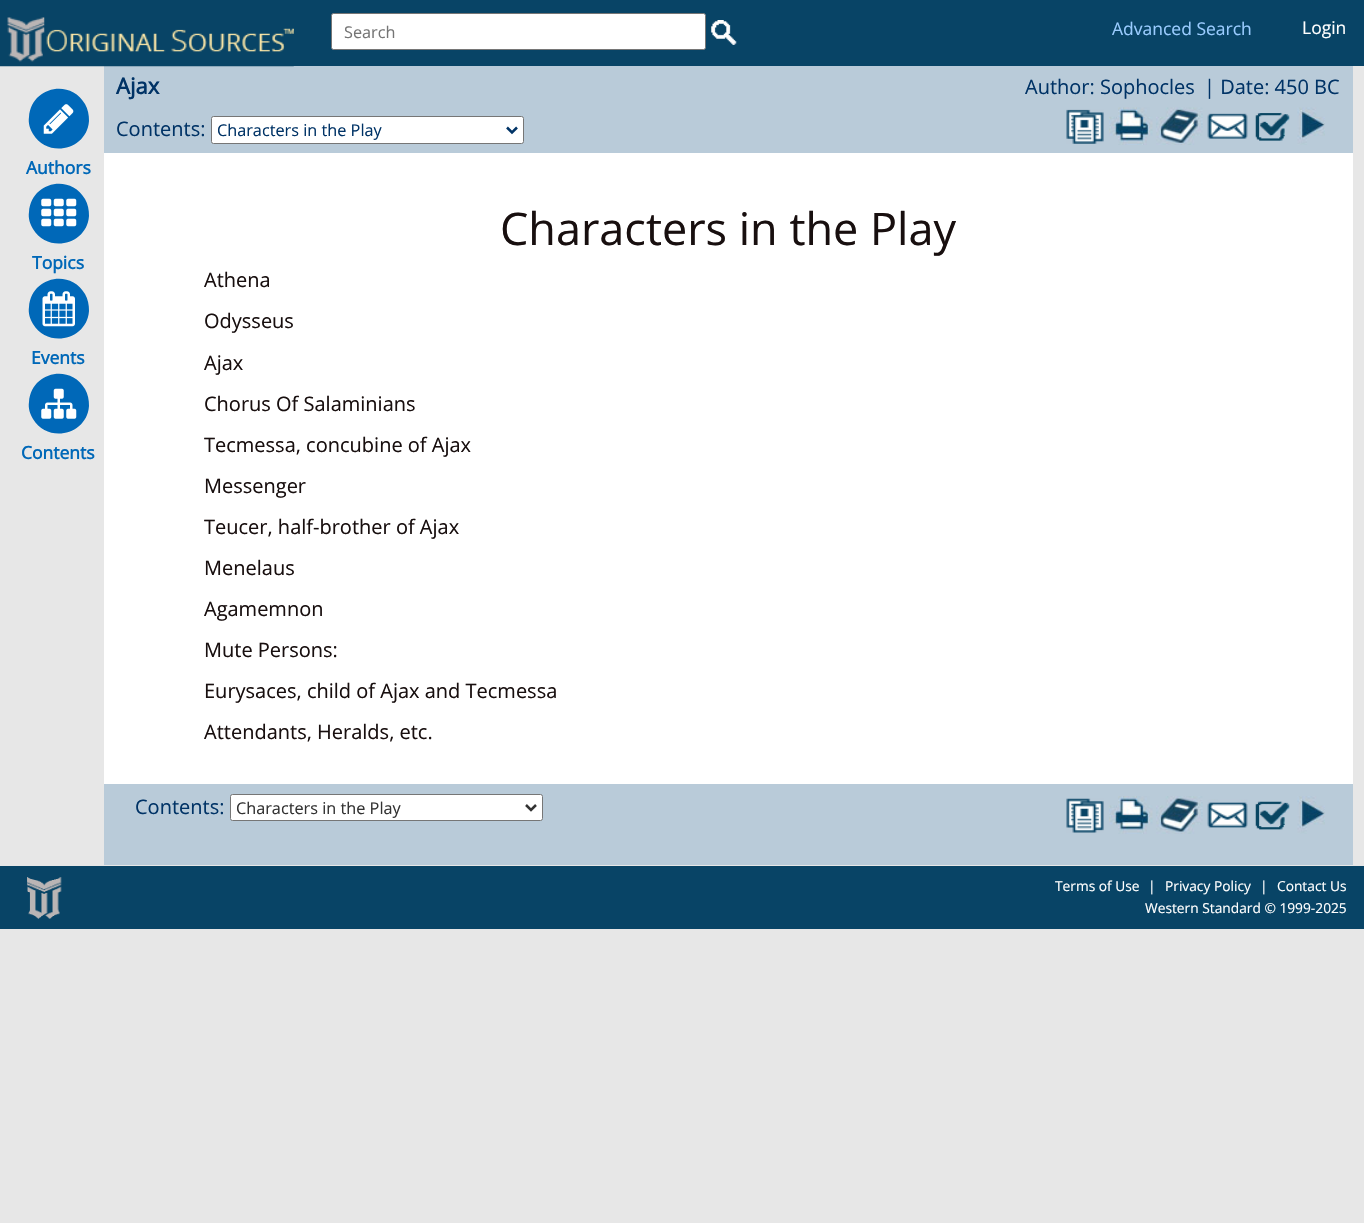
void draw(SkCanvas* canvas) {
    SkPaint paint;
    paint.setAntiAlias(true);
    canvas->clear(0xFFE7E7E7);
    paint.setColor(0xFF084466);
    canvas->drawRect(SkRect::MakeXYWH(0, 0, 1364, 66), paint);
    paint.setColor(0xFFB9CBD9);
    canvas->drawRect(SkRect::MakeXYWH(104, 66, 1249, 87), paint);
    canvas->drawImageRect(SkImages::DeferredFromEncodedData(SkData::MakeFromFileName("img1.png")), SkRect::MakeXYWH(0, 17, 294, 50), SkSamplingOptions());
    paint.setColor(0xFFFFFFFF);
    canvas->drawRoundRect(SkRect::MakeXYWH(331.5f, 13.5f, 374, 36), 2, 2, paint);
    paint.setStyle(SkPaint::kStroke_Style);
    paint.setStrokeWidth(1);
    paint.setColor(0xFF767676);
    canvas->drawRoundRect(SkRect::MakeXYWH(331.5f, 13.5f, 374, 36), 2, 2, paint);
    SkFont font1(fontMgr->matchFamilyStyle("Open Sans", SkFontStyle::Normal()), 16.25f);
    font1.setSubpixel(true);
    paint.setStyle(SkPaint::kFill_Style);
    paint.setColor(0xFF757575);
    canvas->drawString("Search", 344, 38, font1, paint);
    canvas->drawImageRect(SkImages::DeferredFromEncodedData(SkData::MakeFromFileName("img2.png")), SkRect::MakeXYWH(711, 20, 26, 25), SkSamplingOptions());
    SkFont font2(fontMgr->matchFamilyStyle("Open Sans", SkFontStyle::Normal()), 17.5f);
    font2.setSubpixel(true);
    paint.setColor(0xFF9ACCFF);
    canvas->drawString("Advanced Search", 1112, 35, font2, paint);
    paint.setColor(0xFFFFFFFF);
    canvas->drawString("Login", 1302, 34, font2, paint);
    paint.setColor(0xFF0068B8);
    canvas->drawPath(SkPathBuilder().moveTo(85, 104).cubicTo(88, 109, 89, 115, 89, 121).cubicTo(87, 150, 48, 159, 33, 134).cubicTo(30, 129, 28, 123, 29, 117).cubicTo(31, 87, 70, 78, 85, 104).close().detach(), paint);
    canvas->drawImageRect(SkImages::DeferredFromEncodedData(SkData::MakeFromFileName("img3.png")), SkRect::MakeXYWH(43, 104, 31, 30), SkSamplingOptions());
    SkFont font3(fontMgr->matchFamilyStyle("Open Sans", SkFontStyle::Bold()), 17.5f);
    font3.setSubpixel(true);
    canvas->drawString("Authors", 26, 174, font3, paint);
    canvas->drawPath(SkPathBuilder().moveTo(85, 199).cubicTo(88, 204, 89, 210, 89, 216).cubicTo(87, 245, 48, 254, 33, 229).cubicTo(30, 224, 28, 218, 29, 212).cubicTo(31, 182, 70, 173, 85, 199).close().detach(), paint);
    canvas->drawImageRect(SkImages::DeferredFromEncodedData(SkData::MakeFromFileName("img4.png")), SkRect::MakeXYWH(41, 198, 36, 29), SkSamplingOptions());
    canvas->drawString("Topics", 32, 269, font3, paint);
    canvas->drawPath(SkPathBuilder().moveTo(85, 294).cubicTo(88, 299, 89, 305, 89, 311).cubicTo(87, 340, 48, 349, 33, 324).cubicTo(30, 319, 28, 313, 29, 307).cubicTo(31, 277, 70, 268, 85, 294).close().detach(), paint);
    canvas->drawImageRect(SkImages::DeferredFromEncodedData(SkData::MakeFromFileName("img5.png")), SkRect::MakeXYWH(42, 291, 33, 36), SkSamplingOptions());
    canvas->drawString("Events", 31, 364, font3, paint);
    canvas->drawPath(SkPathBuilder().moveTo(85, 389).cubicTo(88, 394, 89, 400, 89, 406).cubicTo(87, 435, 48, 444, 33, 419).cubicTo(30, 414, 28, 408, 29, 402).cubicTo(31, 372, 70, 363, 85, 389).close().detach(), paint);
    canvas->drawImageRect(SkImages::DeferredFromEncodedData(SkData::MakeFromFileName("img6.png")), SkRect::MakeXYWH(41, 388, 36, 31), SkSamplingOptions());
    canvas->drawString("Contents", 21, 459, font3, paint);
    paint.setColor(0xFFFFFFFF);
    canvas->drawRect(SkRect::MakeXYWH(104, 153, 1249, 631), paint);
    SkFont font4(fontMgr->matchFamilyStyle("Open Sans", SkFontStyle::Bold()), 22);
    font4.setSubpixel(true);
    paint.setColor(0xFF003366);
    canvas->drawString("Ajax", 116, 94, font4, paint);
    SkFont font5(fontMgr->matchFamilyStyle("Open Sans", SkFontStyle::Normal()), 20);
    font5.setSubpixel(true);
    canvas->drawString("Contents:", 116, 136, font5, paint);
    paint.setColor(0xFFFFFFFF);
    canvas->drawRoundRect(SkRect::MakeXYWH(211.5f, 116.5f, 312, 27), 2, 2, paint);
    paint.setStyle(SkPaint::kStroke_Style);
    paint.setColor(0xFF767676);
    canvas->drawRoundRect(SkRect::MakeXYWH(211.5f, 116.5f, 312, 27), 2, 2, paint);
    paint.setStrokeWidth(2.5f);
    paint.setColor(0xFF003366);
    canvas->drawPath(SkPathBuilder().moveTo(507, 127.5f).lineTo(512, 132.5f).lineTo(517, 127.5f).detach(), paint);
    paint.setStyle(SkPaint::kFill_Style);
    canvas->drawString("Characters in the Play", 217, 136, font1, paint);
    canvas->drawString("Author: Sophocles", 1025, 94, font5, paint);
    canvas->drawString("| Date: 450 BC", 1204, 94, font5, paint);
    canvas->drawImageRect(SkImages::DeferredFromEncodedData(SkData::MakeFromFileName("img7.png")), SkRect::MakeXYWH(1066, 109, 38, 35), SkSamplingOptions());
    canvas->drawImageRect(SkImages::DeferredFromEncodedData(SkData::MakeFromFileName("img8.png")), SkRect::MakeXYWH(1109, 107, 44, 38), SkSamplingOptions());
    canvas->drawImageRect(SkImages::DeferredFromEncodedData(SkData::MakeFromFileName("img9.png")), SkRect::MakeXYWH(1156, 107, 47, 38), SkSamplingOptions());
    canvas->drawImageRect(SkImages::DeferredFromEncodedData(SkData::MakeFromFileName("img10.png")), SkRect::MakeXYWH(1207, 113, 41, 26), SkSamplingOptions());
    canvas->drawImageRect(SkImages::DeferredFromEncodedData(SkData::MakeFromFileName("img11.png")), SkRect::MakeXYWH(1255, 112, 35, 29), SkSamplingOptions());
    canvas->drawImageRect(SkImages::DeferredFromEncodedData(SkData::MakeFromFileName("img12.png")), SkRect::MakeXYWH(1297, 107, 28, 38), SkSamplingOptions());
    SkFont font6(fontMgr->matchFamilyStyle("Open Sans", SkFontStyle::Normal()), 45);
    font6.setSubpixel(true);
    paint.setColor(0xFF180F0F);
    canvas->drawString("Characters in the Play", 500, 245, font6, paint);
    canvas->drawString("Athena", 204, 287, font5, paint);
    canvas->drawString("Odysseus", 204, 328, font5, paint);
    canvas->drawString("Ajax", 204, 370, font5, paint);
    canvas->drawString("Chorus Of Salaminians", 204, 411, font5, paint);
    canvas->drawString("Tecmessa, concubine of Ajax", 204, 452, font5, paint);
    canvas->drawString("Messenger", 204, 493, font5, paint);
    canvas->drawString("Teucer, half-brother of Ajax", 204, 534, font5, paint);
    canvas->drawString("Menelaus", 204, 575, font5, paint);
    canvas->drawString("Agamemnon", 204, 616, font5, paint);
    canvas->drawString("Mute Persons:", 204, 657, font5, paint);
    canvas->drawString("Eurysaces, child of Ajax and Tecmessa", 204, 698, font5, paint);
    canvas->drawString("Attendants, Heralds, etc.", 204, 739, font5, paint);
    paint.setColor(0xFFB9CBD9);
    canvas->drawRect(SkRect::MakeXYWH(104, 784, 1249, 81), paint);
    paint.setColor(0xFF003366);
    canvas->drawString("Contents:", 135, 814, font5, paint);
    paint.setColor(0xFFFFFFFF);
    canvas->drawRoundRect(SkRect::MakeXYWH(230.5f, 794.5f, 312, 26), 2, 2, paint);
    paint.setStyle(SkPaint::kStroke_Style);
    paint.setStrokeWidth(1);
    paint.setColor(0xFF767676);
    canvas->drawRoundRect(SkRect::MakeXYWH(230.5f, 794.5f, 312, 26), 2, 2, paint);
    paint.setStrokeWidth(2.5f);
    paint.setColor(0xFF333333);
    canvas->drawPath(SkPathBuilder().moveTo(526, 805).lineTo(531, 810).lineTo(536, 805).detach(), paint);
    paint.setStyle(SkPaint::kFill_Style);
    canvas->drawString("Characters in the Play", 236, 814, font1, paint);
    canvas->drawImageRect(SkImages::DeferredFromEncodedData(SkData::MakeFromFileName("img13.png")), SkRect::MakeXYWH(1066, 798, 38, 35), SkSamplingOptions());
    canvas->drawImageRect(SkImages::DeferredFromEncodedData(SkData::MakeFromFileName("img14.png")), SkRect::MakeXYWH(1109, 796, 44, 38), SkSamplingOptions());
    canvas->drawImageRect(SkImages::DeferredFromEncodedData(SkData::MakeFromFileName("img15.png")), SkRect::MakeXYWH(1156, 796, 47, 38), SkSamplingOptions());
    canvas->drawImageRect(SkImages::DeferredFromEncodedData(SkData::MakeFromFileName("img16.png")), SkRect::MakeXYWH(1207, 799, 41, 29), SkSamplingOptions());
    canvas->drawImageRect(SkImages::DeferredFromEncodedData(SkData::MakeFromFileName("img17.png")), SkRect::MakeXYWH(1255, 801, 35, 29), SkSamplingOptions());
    canvas->drawImageRect(SkImages::DeferredFromEncodedData(SkData::MakeFromFileName("img18.png")), SkRect::MakeXYWH(1297, 796, 28, 38), SkSamplingOptions());
    paint.setColor(0xFF084466);
    canvas->drawRect(SkRect::MakeXYWH(0, 866, 1364, 63), paint);
    canvas->drawImageRect(SkImages::DeferredFromEncodedData(SkData::MakeFromFileName("img19.png")), SkRect::MakeXYWH(27, 877, 35, 42), SkSamplingOptions());
    SkFont font7(fontMgr->matchFamilyStyle("Open Sans", SkFontStyle::Normal()), 13.75f);
    font7.setSubpixel(true);
    paint.setColor(0xFFFFFFFF);
    canvas->drawString("Terms of Use", 1055, 891, font7, paint);
    canvas->drawString("|", 1148, 891, font7, paint);
    canvas->drawString("Privacy Policy", 1165, 891, font7, paint);
    canvas->drawString("|", 1260, 891, font7, paint);
    canvas->drawString("Contact Us", 1277, 891, font7, paint);
    canvas->drawString("Western Standard © 1999-2025", 1145, 913, font7, paint);
}
